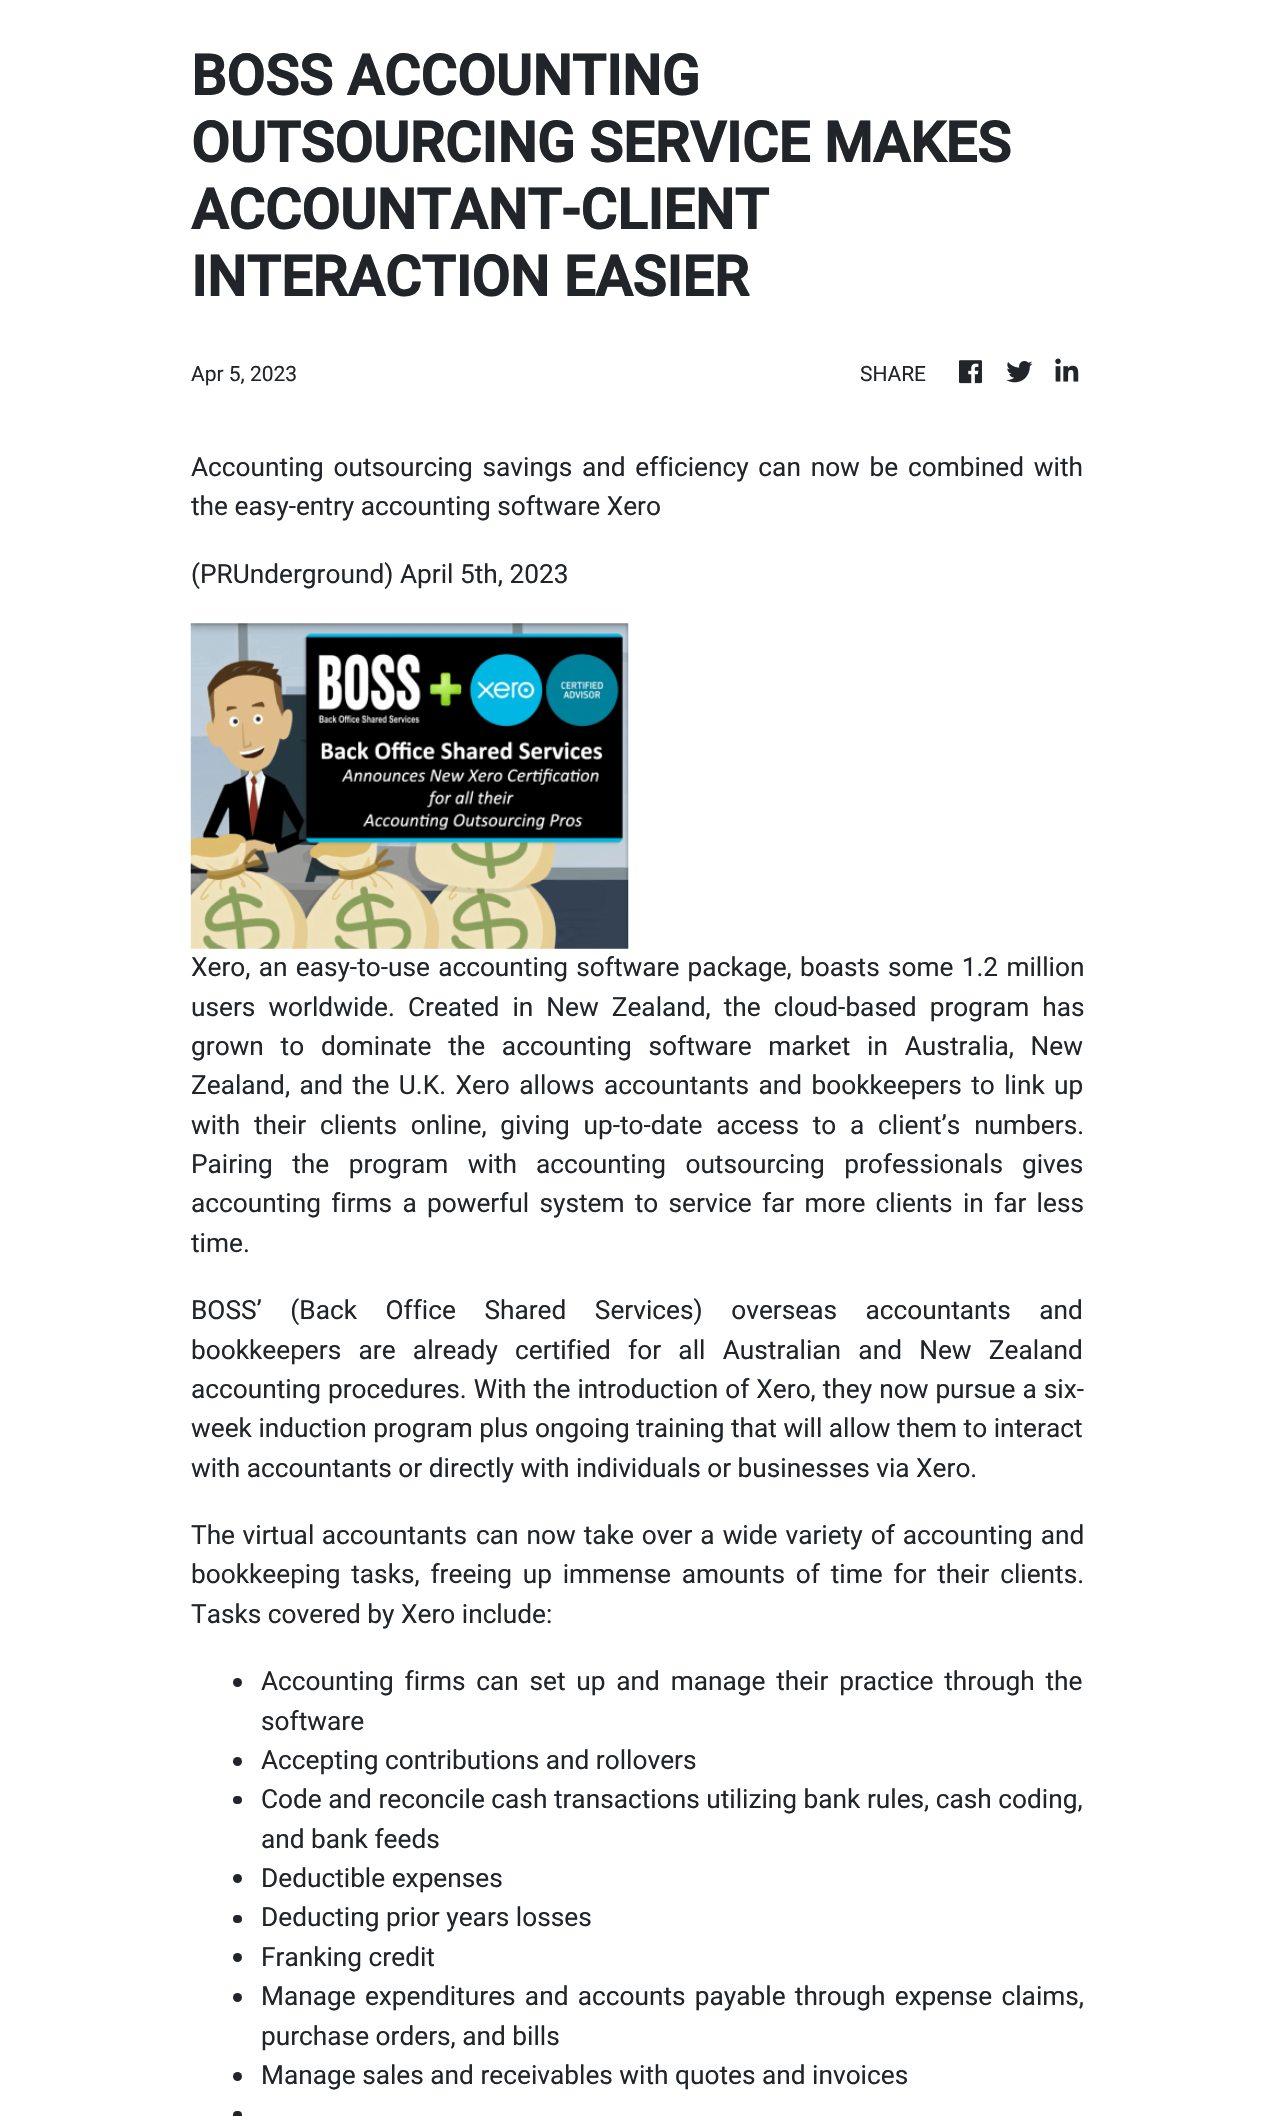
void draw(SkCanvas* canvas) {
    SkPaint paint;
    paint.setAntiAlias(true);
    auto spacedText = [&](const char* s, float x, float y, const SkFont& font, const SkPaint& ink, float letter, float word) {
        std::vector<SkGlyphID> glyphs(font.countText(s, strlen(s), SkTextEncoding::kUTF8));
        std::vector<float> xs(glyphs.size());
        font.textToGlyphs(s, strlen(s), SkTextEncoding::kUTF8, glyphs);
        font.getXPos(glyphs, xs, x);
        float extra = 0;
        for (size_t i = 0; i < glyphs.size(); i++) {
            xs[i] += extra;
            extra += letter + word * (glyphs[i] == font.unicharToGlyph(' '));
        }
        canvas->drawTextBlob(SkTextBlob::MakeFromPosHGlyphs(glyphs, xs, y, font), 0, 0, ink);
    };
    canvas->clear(0xFFFFFFFF);
    SkFont font1(fontMgr->matchFamilyStyle("Roboto", SkFontStyle::Bold()), 56);
    font1.setSubpixel(true);
    paint.setColor(0xFF212529);
    canvas->drawString("BOSS ACCOUNTING", 191, 95, font1, paint);
    canvas->drawString("OUTSOURCING SERVICE MAKES", 191, 162, font1, paint);
    canvas->drawString("ACCOUNTANT-CLIENT", 191, 229, font1, paint);
    canvas->drawString("INTERACTION EASIER", 191, 296, font1, paint);
    SkFont font2(fontMgr->matchFamilyStyle("Roboto", SkFontStyle::Normal()), 21);
    font2.setSubpixel(true);
    canvas->drawString("Apr 5, 2023", 191, 381, font2, paint);
    canvas->drawString("SHARE", 860, 381, font2, paint);
    canvas->drawImageRect(SkImages::DeferredFromEncodedData(SkData::MakeFromFileName("img1.png")), SkRect::MakeXYWH(959, 360, 23, 24), SkSamplingOptions());
    canvas->drawImageRect(SkImages::DeferredFromEncodedData(SkData::MakeFromFileName("img2.png")), SkRect::MakeXYWH(1006, 361, 27, 22), SkSamplingOptions());
    canvas->drawImageRect(SkImages::DeferredFromEncodedData(SkData::MakeFromFileName("img3.png")), SkRect::MakeXYWH(1055, 358, 24, 24), SkSamplingOptions());
    SkFont font3(fontMgr->matchFamilyStyle("Roboto", SkFontStyle::Normal()), 26.25f);
    font3.setSubpixel(true);
    spacedText("Accounting outsourcing savings and efficiency can now be combined with", 191, 476, font3, paint, 0, 3.25f);
    canvas->drawString("the easy-entry accounting software Xero", 191, 515, font3, paint);
    canvas->drawString("(PRUnderground) April 5th, 2023", 191, 583, font3, paint);
    canvas->drawImageRect(SkImages::DeferredFromEncodedData(SkData::MakeFromFileName("img4.png")), SkRect::MakeXYWH(190, 623, 439, 326), SkSamplingOptions());
    spacedText("Xero, an easy-to-use accounting software package, boasts some 1.2 million", 191, 976, font3, paint, 0, 1.75f);
    spacedText("users worldwide. Created in New Zealand, the cloud-based program has", 191, 1016, font3, paint, 0, 6.5f);
    spacedText("grown to dominate the accounting software market in Australia, New", 191, 1055, font3, paint, 0, 10.25f);
    spacedText("Zealand, and the U.K. Xero allows accountants and bookkeepers to link up", 191, 1094, font3, paint, 0, 2.9f);
    spacedText("with their clients online, giving up-to-date access to a client’s numbers.", 191, 1134, font3, paint, 0, 7.25f);
    spacedText("Pairing the program with", 191, 1173, font3, paint, 0, 13);
    spacedText("accounting outsourcing professionals", 536, 1173, font3, paint, 0, 13);
    canvas->drawString("gives", 1022, 1173, font3, paint);
    spacedText("accounting firms a powerful system to service far more clients in far less", 191, 1212, font3, paint, 0, 3.75f);
    canvas->drawString("time.", 191, 1252, font3, paint);
    spacedText("BOSS’ (Back Office Shared Services) overseas accountants and", 191, 1319, font3, paint, 0, 22);
    spacedText("bookkeepers are already certified for all Australian and New Zealand", 191, 1359, font3, paint, 0, 10.75f);
    spacedText("accounting procedures. With the introduction of Xero, they now pursue a six-", 191, 1398, font3, paint, 0, 0.5f);
    canvas->drawString("week induction program plus ongoing training that will allow them to interact", 191, 1437, font3, paint);
    canvas->drawString("with accountants or directly with individuals or businesses via Xero.", 191, 1477, font3, paint);
    spacedText("The virtual accountants", 191, 1544, font3, paint, 0, 1);
    spacedText("can now take over a wide variety of accounting and", 476, 1544, font3, paint, 0, 1.5f);
    spacedText("bookkeeping tasks, freeing up immense amounts of time for their clients.", 191, 1583, font3, paint, 0, 4.25f);
    canvas->drawString("Tasks covered by Xero include:", 191, 1623, font3, paint);
    canvas->drawCircle(237.5f, 1682.5f, 4.5f, paint);
    spacedText("Accounting firms can set up and manage their practice through the", 261, 1690, font3, paint, 0, 4.25f);
    canvas->drawString("software", 261, 1730, font3, paint);
    canvas->drawCircle(237.5f, 1761.5f, 4.5f, paint);
    canvas->drawString("Accepting contributions and rollovers", 261, 1769, font3, paint);
    canvas->drawRoundRect(SkRect::MakeXYWH(233, 1796, 9, 8), 4, 4, paint);
    canvas->drawString("Code and reconcile cash transactions utilizing bank rules, cash coding,", 261, 1808, font3, paint);
    canvas->drawString("and bank feeds", 261, 1848, font3, paint);
    canvas->drawCircle(237.5f, 1878.5f, 4.5f, paint);
    canvas->drawString("Deductible expenses", 261, 1887, font3, paint);
    canvas->drawRoundRect(SkRect::MakeXYWH(233, 1915, 9, 8), 4, 4, paint);
    canvas->drawString("Deducting prior years losses", 261, 1926, font3, paint);
    canvas->drawCircle(237.5f, 1957.5f, 4.5f, paint);
    canvas->drawString("Franking credit", 261, 1966, font3, paint);
    canvas->drawCircle(237.5f, 1997.5f, 4.5f, paint);
    spacedText("Manage expenditures and accounts payable through expense claims,", 261, 2005, font3, paint, 0, 2.75f);
    canvas->drawString("purchase orders, and bills", 261, 2045, font3, paint);
    canvas->drawCircle(237.5f, 2076.5f, 4.5f, paint);
    canvas->drawString("Manage sales and receivables with quotes and invoices", 261, 2084, font3, paint);
    canvas->drawRoundRect(SkRect::MakeXYWH(233, 2111, 9, 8), 4, 4, paint);
}
